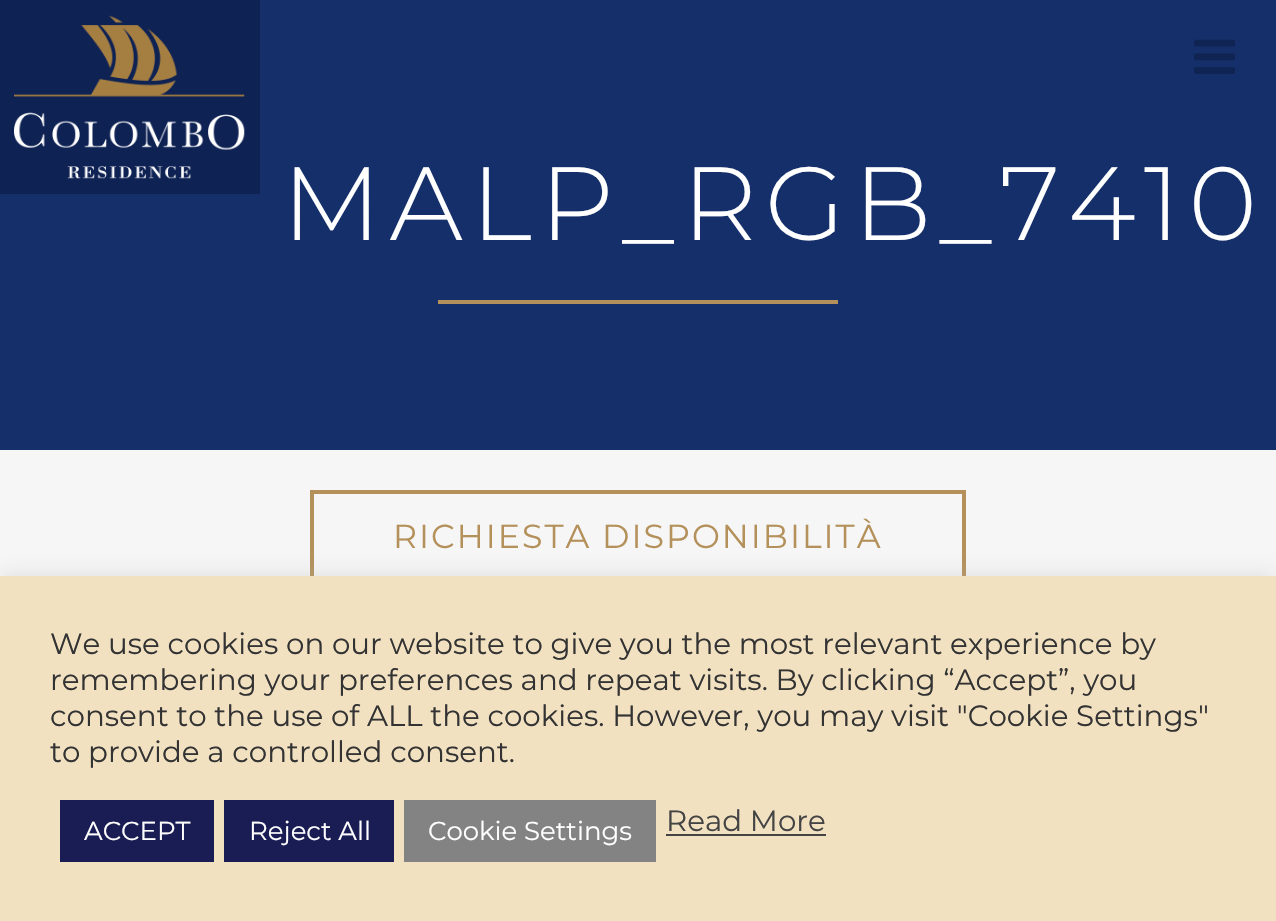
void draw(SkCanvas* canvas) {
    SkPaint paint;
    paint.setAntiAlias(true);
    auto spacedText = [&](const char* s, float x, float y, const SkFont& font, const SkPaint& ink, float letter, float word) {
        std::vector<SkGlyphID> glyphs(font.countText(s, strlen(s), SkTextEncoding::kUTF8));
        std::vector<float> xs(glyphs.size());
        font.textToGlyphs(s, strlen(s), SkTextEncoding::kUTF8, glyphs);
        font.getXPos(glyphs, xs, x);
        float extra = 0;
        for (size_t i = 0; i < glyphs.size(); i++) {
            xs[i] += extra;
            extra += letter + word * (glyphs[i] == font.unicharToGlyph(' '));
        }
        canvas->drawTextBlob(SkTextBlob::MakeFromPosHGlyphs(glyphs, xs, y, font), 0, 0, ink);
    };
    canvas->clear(0xFF142F69);
    canvas->drawImageRect(SkImages::DeferredFromEncodedData(SkData::MakeFromFileName("img1.png")), SkRect::MakeXYWH(0, 0, 260, 194), SkSamplingOptions());
    canvas->drawImageRect(SkImages::DeferredFromEncodedData(SkData::MakeFromFileName("img2.png")), SkRect::MakeXYWH(1194, 39, 41, 35), SkSamplingOptions());
    SkFont font1(fontMgr->matchFamilyStyle("Montserrat", SkFontStyle(300, SkFontStyle::kNormal_Width, SkFontStyle::kUpright_Slant)), 104);
    font1.setSubpixel(true);
    paint.setColor(0xFFFFFFFF);
    spacedText("MALP_RGB_7410", 282, 240, font1, paint, 8, 0);
    paint.setColor(0xFFB4905A);
    canvas->drawRect(SkRect::MakeXYWH(438, 300, 400, 4), paint);
    paint.setColor(0xFFF6F6F6);
    canvas->drawRect(SkRect::MakeXYWH(0, 450, 1276, 126), paint);
    paint.setStyle(SkPaint::kStroke_Style);
    paint.setStrokeWidth(4);
    paint.setColor(0xFFB4905A);
    canvas->drawRect(SkRect::MakeXYWH(312, 492, 652, 92), paint);
    SkFont font2(fontMgr->matchFamilyStyle("Montserrat", SkFontStyle::Normal()), 33.25f);
    font2.setSubpixel(true);
    paint.setStyle(SkPaint::kFill_Style);
    spacedText("RICHIESTA DISPONIBILITÀ", 393, 548, font2, paint, 2, 0);
    paint.setColor(0x4DACABAB);
    paint.setMaskFilter(SkMaskFilter::MakeBlur(kNormal_SkBlurStyle, 10));
    canvas->drawRect(SkRect::MakeXYWH(0, 574, 1276, 346), paint);
    paint.setMaskFilter(nullptr);
    paint.setColor(0xFFF2E1C1);
    canvas->drawRect(SkRect::MakeXYWH(0, 576, 1276, 345), paint);
    SkFont font3(fontMgr->matchFamilyStyle("Montserrat", SkFontStyle::Normal()), 29.35f);
    font3.setSubpixel(true);
    paint.setColor(0xFF333333);
    canvas->drawString("We use cookies on our website to give you the most relevant experience by", 50, 654, font3, paint);
    canvas->drawString("remembering your preferences and repeat visits. By clicking “Accept”, you", 50, 690, font3, paint);
    canvas->drawString("consent to the use of ALL the cookies. However, you may visit \"Cookie Settings\"", 50, 726, font3, paint);
    canvas->drawString("to provide a controlled consent.", 50, 762, font3, paint);
    paint.setColor(0xFF191D53);
    canvas->drawRect(SkRect::MakeXYWH(60, 800, 154, 62), paint);
    SkFont font4(fontMgr->matchFamilyStyle("Montserrat", SkFontStyle::Normal()), 26);
    font4.setSubpixel(true);
    paint.setColor(0xFFFFFFFF);
    canvas->drawString("ACCEPT", 84, 840, font4, paint);
    paint.setColor(0xFF191D53);
    canvas->drawRect(SkRect::MakeXYWH(224, 800, 170, 62), paint);
    paint.setColor(0xFFFFFFFF);
    canvas->drawString("Reject All", 249, 840, font4, paint);
    paint.setColor(0xFF838384);
    canvas->drawRect(SkRect::MakeXYWH(404, 800, 252, 62), paint);
    paint.setColor(0xFFFFFFFF);
    canvas->drawString("Cookie Settings", 428, 840, font4, paint);
    paint.setColor(0xFF444444);
    canvas->drawString("Read More", 666, 831, font3, paint);
    canvas->drawRect(SkRect::MakeXYWH(666, 834, 160, 2), paint);
}
